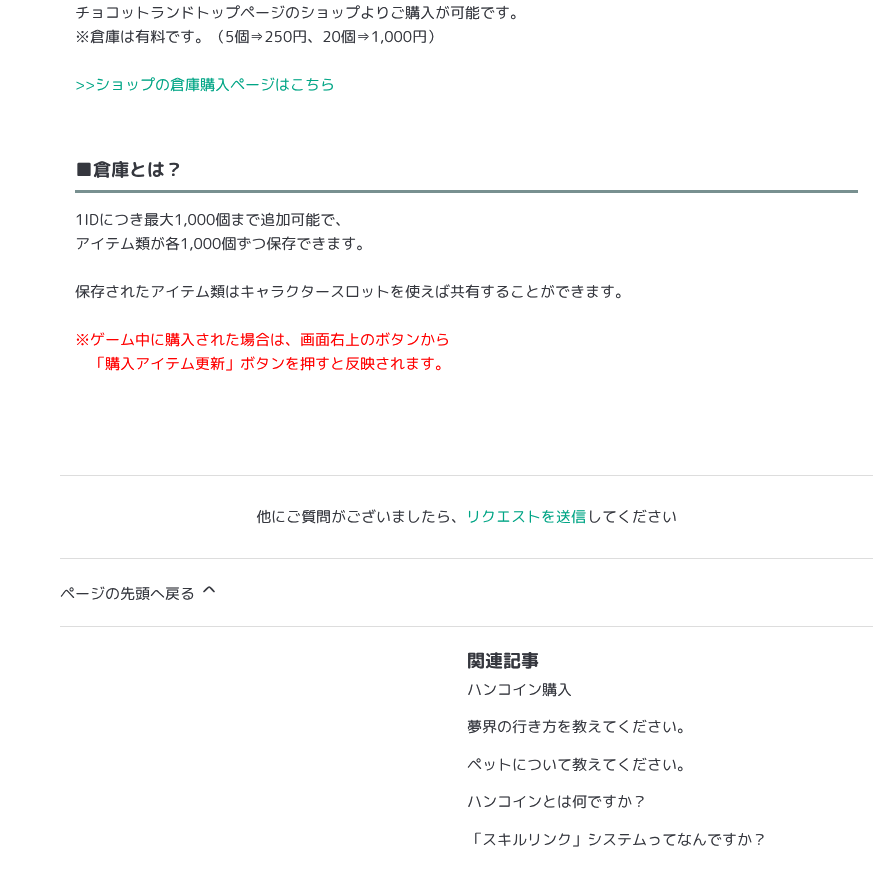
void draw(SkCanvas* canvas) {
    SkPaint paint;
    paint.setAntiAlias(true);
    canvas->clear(0xFFFFFFFF);
    SkFont font1(fontMgr->matchFamilyStyle("Rounded Mplus 1c", SkFontStyle::Normal()), 15);
    font1.setSubpixel(true);
    paint.setColor(0xFF35373E);
    canvas->drawString("チョコットランドトップページのショップよりご購入が可能です。", 75, 18, font1, paint);
    canvas->drawString("※倉庫は有料です。（5個⇒250円、20個⇒1,000円）", 75, 42, font1, paint);
    paint.setColor(0xFF00A585);
    canvas->drawString(">>ショップの倉庫購入ページはこちら", 75, 90, font1, paint);
    SkFont font2(fontMgr->matchFamilyStyle("Rounded Mplus 1c Bold", SkFontStyle::Bold()), 18);
    font2.setSubpixel(true);
    paint.setColor(0xFF35373E);
    canvas->drawString("■倉庫とは？", 75, 176, font2, paint);
    paint.setColor(0xFF789090);
    canvas->drawRect(SkRect::MakeXYWH(75, 190, 783, 3), paint);
    paint.setColor(0xFF35373E);
    canvas->drawString("1IDにつき最大1,000個まで追加可能で、", 75, 225, font1, paint);
    canvas->drawString("アイテム類が各1,000個ずつ保存できます。", 75, 249, font1, paint);
    canvas->drawString("保存されたアイテム類はキャラクタースロットを使えば共有することができます。", 75, 297, font1, paint);
    paint.setColor(0xFFFF0000);
    canvas->drawString("※ゲーム中に購入された場合は、画面右上のボタンから", 75, 345, font1, paint);
    canvas->drawString("「購入アイテム更新」ボタンを押すと反映されます。", 90, 369, font1, paint);
    paint.setColor(0xFFDDDDDD);
    canvas->drawRect(SkRect::MakeXYWH(60, 475, 813, 1), paint);
    paint.setColor(0xFF35373E);
    canvas->drawString("他にご質問がございましたら、", 256, 522, font1, paint);
    paint.setColor(0xFF00A585);
    canvas->drawString("リクエストを送信", 466, 522, font1, paint);
    paint.setColor(0xFF35373E);
    canvas->drawString("してください", 587, 522, font1, paint);
    paint.setColor(0xFFDDDDDD);
    canvas->drawRect(SkRect::MakeXYWH(60, 558, 813, 1), paint);
    paint.setColor(0xFF35373E);
    canvas->drawString("ページの先頭へ戻る", 60, 599, font1, paint);
    paint.setStyle(SkPaint::kStroke_Style);
    paint.setStrokeWidth(1.7f);
    paint.setStrokeCap(SkPaint::kRound_Cap);
    canvas->drawPath(SkPathBuilder().moveTo(214, 591.5f).cubicTo(208, 585.5f, 210.5f, 585.5f, 204, 591.5f).detach(), paint);
    paint.setStyle(SkPaint::kFill_Style);
    paint.setColor(0xFFDDDDDD);
    canvas->drawRect(SkRect::MakeXYWH(60, 626, 813, 1), paint);
    paint.setColor(0xFF35373E);
    canvas->drawString("関連記事", 467, 667, font2, paint);
    canvas->drawString("ハンコイン購入", 467, 695, font1, paint);
    canvas->drawString("夢界の行き方を教えてください。", 467, 732, font1, paint);
    canvas->drawString("ペットについて教えてください。", 467, 770, font1, paint);
    canvas->drawString("ハンコインとは何ですか？", 467, 807, font1, paint);
    canvas->drawString("「スキルリンク」システムってなんですか？", 467, 845, font1, paint);
}
